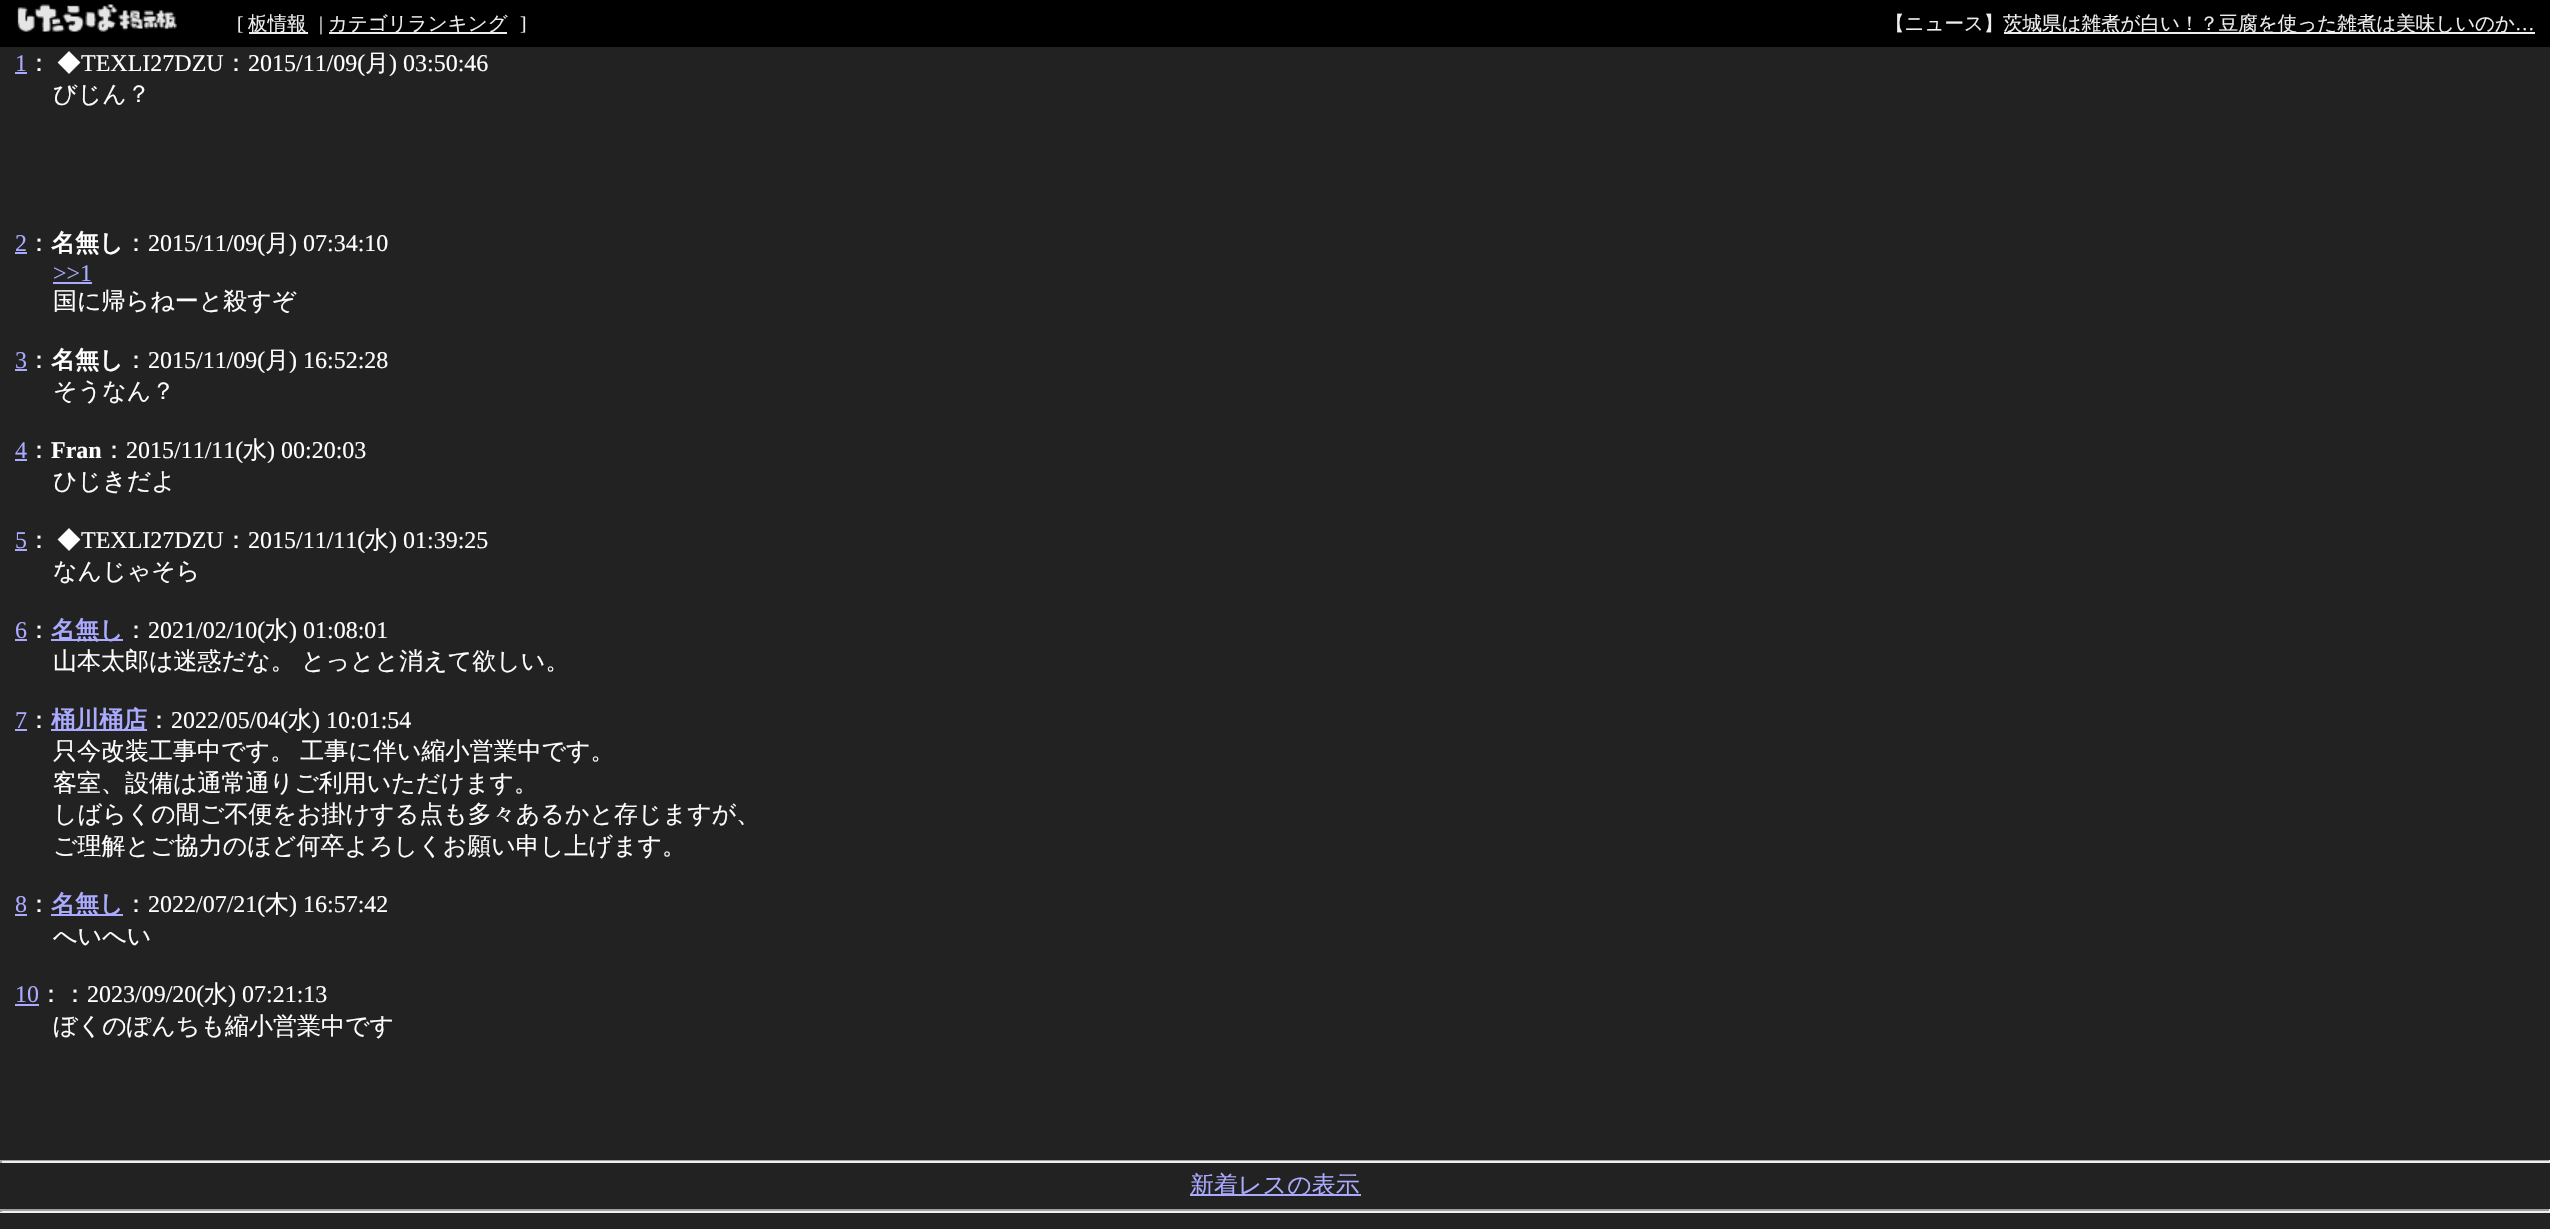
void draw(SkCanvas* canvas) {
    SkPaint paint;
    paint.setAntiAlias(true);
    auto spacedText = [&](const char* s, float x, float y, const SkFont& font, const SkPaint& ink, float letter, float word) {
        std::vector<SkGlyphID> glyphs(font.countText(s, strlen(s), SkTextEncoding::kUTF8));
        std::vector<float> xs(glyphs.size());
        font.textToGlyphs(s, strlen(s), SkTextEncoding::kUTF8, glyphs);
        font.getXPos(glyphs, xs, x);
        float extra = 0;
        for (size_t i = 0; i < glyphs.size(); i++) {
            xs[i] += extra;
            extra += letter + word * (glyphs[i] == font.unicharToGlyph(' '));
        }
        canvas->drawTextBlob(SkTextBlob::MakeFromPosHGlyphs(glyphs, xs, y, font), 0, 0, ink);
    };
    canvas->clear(0xFF222222);
    paint.setColor(0xFF000000);
    canvas->drawRect(SkRect::MakeXYWH(0, 0, 2550, 47), paint);
    canvas->drawImageRect(SkImages::DeferredFromEncodedData(SkData::MakeFromFileName("img1.png")), SkRect::MakeXYWH(17, 4, 160, 28), SkSamplingOptions());
    SkFont font1(fontMgr->matchFamilyStyle("Liberation Serif", SkFontStyle::Normal()), 19.5f);
    font1.setSubpixel(true);
    paint.setColor(0xFFEEEEEE);
    canvas->drawString("[", 237, 30, font1, paint);
    canvas->drawRect(SkRect::MakeXYWH(249, 32, 59, 2), paint);
    SkFont font2(fontMgr->matchFamilyStyle("WenQuanYi Zen Hei", SkFontStyle(500, SkFontStyle::kNormal_Width, SkFontStyle::kUpright_Slant)), 19.5f);
    font2.setSubpixel(true);
    canvas->drawString("板情報", 248, 30, font2, paint);
    canvas->drawString("|", 319, 30, font1, paint);
    canvas->drawRect(SkRect::MakeXYWH(329, 32, 178, 2), paint);
    canvas->drawString("カテゴリランキング", 328, 30, font2, paint);
    canvas->drawString("]", 520, 30, font1, paint);
    canvas->drawString("【ニュース】", 1885, 30, font2, paint);
    canvas->drawRect(SkRect::MakeXYWH(2004, 32, 531, 2), paint);
    canvas->drawString("茨城県は雑煮が白い！？豆腐を使った雑煮は美味しいのか", 2003, 30, font2, paint);
    canvas->drawString("…", 2515, 30, font1, paint);
    SkFont font3(fontMgr->matchFamilyStyle("Liberation Serif", SkFontStyle::Normal()), 24);
    font3.setSubpixel(true);
    paint.setColor(0xFFAAAAFF);
    canvas->drawString("1", 15, 71, font3, paint);
    canvas->drawRect(SkRect::MakeXYWH(15, 72, 12, 2), paint);
    SkFont font4(fontMgr->matchFamilyStyle("WenQuanYi Zen Hei", SkFontStyle(500, SkFontStyle::kNormal_Width, SkFontStyle::kUpright_Slant)), 24);
    font4.setSubpixel(true);
    paint.setColor(0xFFFFFFFF);
    canvas->drawString("：", 27, 71, font4, paint);
    canvas->drawString("◆", 57, 71, font4, paint);
    canvas->drawString("TEXLI27DZU", 81, 71, font3, paint);
    canvas->drawString("：", 224, 71, font4, paint);
    canvas->drawString("2015/11/09(", 248, 71, font3, paint);
    canvas->drawString("月", 365, 71, font4, paint);
    canvas->drawString(") 03:50:46", 389, 71, font3, paint);
    canvas->drawString("びじん？", 53, 102, font4, paint);
    paint.setColor(0xFFAAAAFF);
    canvas->drawString("2", 15, 251, font3, paint);
    canvas->drawRect(SkRect::MakeXYWH(15, 252, 12, 2), paint);
    paint.setColor(0xFFFFFFFF);
    canvas->drawString("：", 27, 251, font4, paint);
    SkFont font5(fontMgr->matchFamilyStyle("WenQuanYi Zen Hei", SkFontStyle::Bold()), 24);
    font5.setSubpixel(true);
    canvas->drawString("名無し", 51, 251, font5, paint);
    canvas->drawString("：", 124, 251, font4, paint);
    canvas->drawString("2015/11/09(", 148, 251, font3, paint);
    canvas->drawString("月", 265, 251, font4, paint);
    canvas->drawString(") 07:34:10", 289, 251, font3, paint);
    paint.setColor(0xFFAAAAFF);
    canvas->drawString(">>1", 53, 281, font3, paint);
    canvas->drawRect(SkRect::MakeXYWH(53, 282, 39, 2), paint);
    paint.setColor(0xFFFFFFFF);
    canvas->drawString("国に帰らねーと殺すぞ", 53, 309, font4, paint);
    paint.setColor(0xFFAAAAFF);
    canvas->drawString("3", 15, 368, font3, paint);
    canvas->drawRect(SkRect::MakeXYWH(15, 369, 12, 2), paint);
    paint.setColor(0xFFFFFFFF);
    canvas->drawString("：", 27, 368, font4, paint);
    canvas->drawString("名無し", 51, 368, font5, paint);
    canvas->drawString("：", 124, 368, font4, paint);
    canvas->drawString("2015/11/09(", 148, 368, font3, paint);
    canvas->drawString("月", 265, 368, font4, paint);
    canvas->drawString(") 16:52:28", 289, 368, font3, paint);
    canvas->drawString("そうなん？", 53, 399, font4, paint);
    paint.setColor(0xFFAAAAFF);
    canvas->drawString("4", 15, 458, font3, paint);
    canvas->drawRect(SkRect::MakeXYWH(15, 459, 12, 2), paint);
    paint.setColor(0xFFFFFFFF);
    canvas->drawString("：", 27, 458, font4, paint);
    SkFont font6(fontMgr->matchFamilyStyle("Liberation Serif", SkFontStyle::Bold()), 24);
    font6.setSubpixel(true);
    canvas->drawString("Fran", 51, 458, font6, paint);
    canvas->drawString("：", 102, 458, font4, paint);
    canvas->drawString("2015/11/11(", 126, 458, font3, paint);
    canvas->drawString("水", 243, 458, font4, paint);
    canvas->drawString(") 00:20:03", 267, 458, font3, paint);
    canvas->drawString("ひじきだよ", 53, 489, font4, paint);
    paint.setColor(0xFFAAAAFF);
    canvas->drawString("5", 15, 548, font3, paint);
    canvas->drawRect(SkRect::MakeXYWH(15, 549, 12, 2), paint);
    paint.setColor(0xFFFFFFFF);
    canvas->drawString("：", 27, 548, font4, paint);
    canvas->drawString("◆", 57, 548, font4, paint);
    canvas->drawString("TEXLI27DZU", 81, 548, font3, paint);
    canvas->drawString("：", 224, 548, font4, paint);
    canvas->drawString("2015/11/11(", 248, 548, font3, paint);
    canvas->drawString("水", 365, 548, font4, paint);
    canvas->drawString(") 01:39:25", 389, 548, font3, paint);
    canvas->drawString("なんじゃそら", 53, 579, font4, paint);
    paint.setColor(0xFFAAAAFF);
    canvas->drawString("6", 15, 638, font3, paint);
    canvas->drawRect(SkRect::MakeXYWH(15, 639, 12, 2), paint);
    paint.setColor(0xFFFFFFFF);
    canvas->drawString("：", 27, 638, font4, paint);
    paint.setColor(0xFFAAAAFF);
    canvas->drawRect(SkRect::MakeXYWH(51, 639, 72, 2), paint);
    canvas->drawString("名無し", 51, 638, font5, paint);
    paint.setColor(0xFFFFFFFF);
    canvas->drawString("：", 124, 638, font4, paint);
    canvas->drawString("2021/02/10(", 148, 638, font3, paint);
    canvas->drawString("水", 265, 638, font4, paint);
    canvas->drawString(") 01:08:01", 289, 638, font3, paint);
    spacedText("山本太郎は迷惑だな。 とっとと消えて欲しい。", 53, 669, font4, paint, 0, -1);
    paint.setColor(0xFFAAAAFF);
    canvas->drawString("7", 15, 728, font3, paint);
    canvas->drawRect(SkRect::MakeXYWH(15, 729, 12, 2), paint);
    paint.setColor(0xFFFFFFFF);
    canvas->drawString("：", 27, 728, font4, paint);
    paint.setColor(0xFFAAAAFF);
    canvas->drawRect(SkRect::MakeXYWH(51, 729, 96, 2), paint);
    canvas->drawString("桶川桶店", 51, 728, font5, paint);
    paint.setColor(0xFFFFFFFF);
    canvas->drawString("：", 147, 728, font4, paint);
    canvas->drawString("2022/05/04(", 171, 728, font3, paint);
    canvas->drawString("水", 288, 728, font4, paint);
    canvas->drawString(") 10:01:54", 312, 728, font3, paint);
    spacedText("只今改装工事中です。 工事に伴い縮小営業中です。", 53, 759, font4, paint, 0, -1);
    canvas->drawString("客室、設備は通常通りご利用いただけます。", 53, 791, font4, paint);
    canvas->drawString("しばらくの間ご不便をお掛けする点も多々あるかと存じますが、", 53, 822, font4, paint);
    canvas->drawString("ご理解とご協力のほど何卒よろしくお願い申し上げます。", 53, 854, font4, paint);
    paint.setColor(0xFFAAAAFF);
    canvas->drawString("8", 15, 912, font3, paint);
    canvas->drawRect(SkRect::MakeXYWH(15, 914, 12, 2), paint);
    paint.setColor(0xFFFFFFFF);
    canvas->drawString("：", 27, 912, font4, paint);
    paint.setColor(0xFFAAAAFF);
    canvas->drawRect(SkRect::MakeXYWH(51, 914, 72, 2), paint);
    canvas->drawString("名無し", 51, 912, font5, paint);
    paint.setColor(0xFFFFFFFF);
    canvas->drawString("：", 124, 912, font4, paint);
    canvas->drawString("2022/07/21(", 148, 912, font3, paint);
    canvas->drawString("木", 265, 912, font4, paint);
    canvas->drawString(") 16:57:42", 289, 912, font3, paint);
    canvas->drawString("へいへい", 53, 944, font4, paint);
    paint.setColor(0xFFAAAAFF);
    canvas->drawString("10", 15, 1002, font3, paint);
    canvas->drawRect(SkRect::MakeXYWH(15, 1004, 24, 2), paint);
    paint.setColor(0xFFFFFFFF);
    canvas->drawString("：：", 39, 1002, font4, paint);
    canvas->drawString("2023/09/20(", 87, 1002, font3, paint);
    canvas->drawString("水", 204, 1002, font4, paint);
    canvas->drawString(") 07:21:13", 228, 1002, font3, paint);
    canvas->drawString("ぼくのぽんちも縮小営業中です", 53, 1034, font4, paint);
    paint.setColor(0xFF9F9F9F);
    canvas->drawRect(SkRect::MakeXYWH(0, 1160, 2550, 1), paint);
    paint.setColor(0xFFEEEEEE);
    canvas->drawRect(SkRect::MakeXYWH(2549, 1160, 1, 3), paint);
    canvas->drawRect(SkRect::MakeXYWH(0, 1161, 2550, 2), paint);
    paint.setColor(0xFF9F9F9F);
    canvas->drawRect(SkRect::MakeXYWH(0, 1160, 2, 3), paint);
    paint.setColor(0xFFAAAAFF);
    canvas->drawRect(SkRect::MakeXYWH(1190, 1194, 171, 2), paint);
    canvas->drawString("新着レスの表示", 1190, 1193, font4, paint);
    paint.setColor(0xFF9F9F9F);
    canvas->drawRect(SkRect::MakeXYWH(0, 1209, 2550, 2), paint);
    paint.setColor(0xFFEEEEEE);
    canvas->drawRect(SkRect::MakeXYWH(2549, 1209, 1, 3), paint);
    canvas->drawRect(SkRect::MakeXYWH(0, 1211, 2550, 2), paint);
    paint.setColor(0xFF9F9F9F);
    canvas->drawRect(SkRect::MakeXYWH(0, 1209, 2, 3), paint);
}
